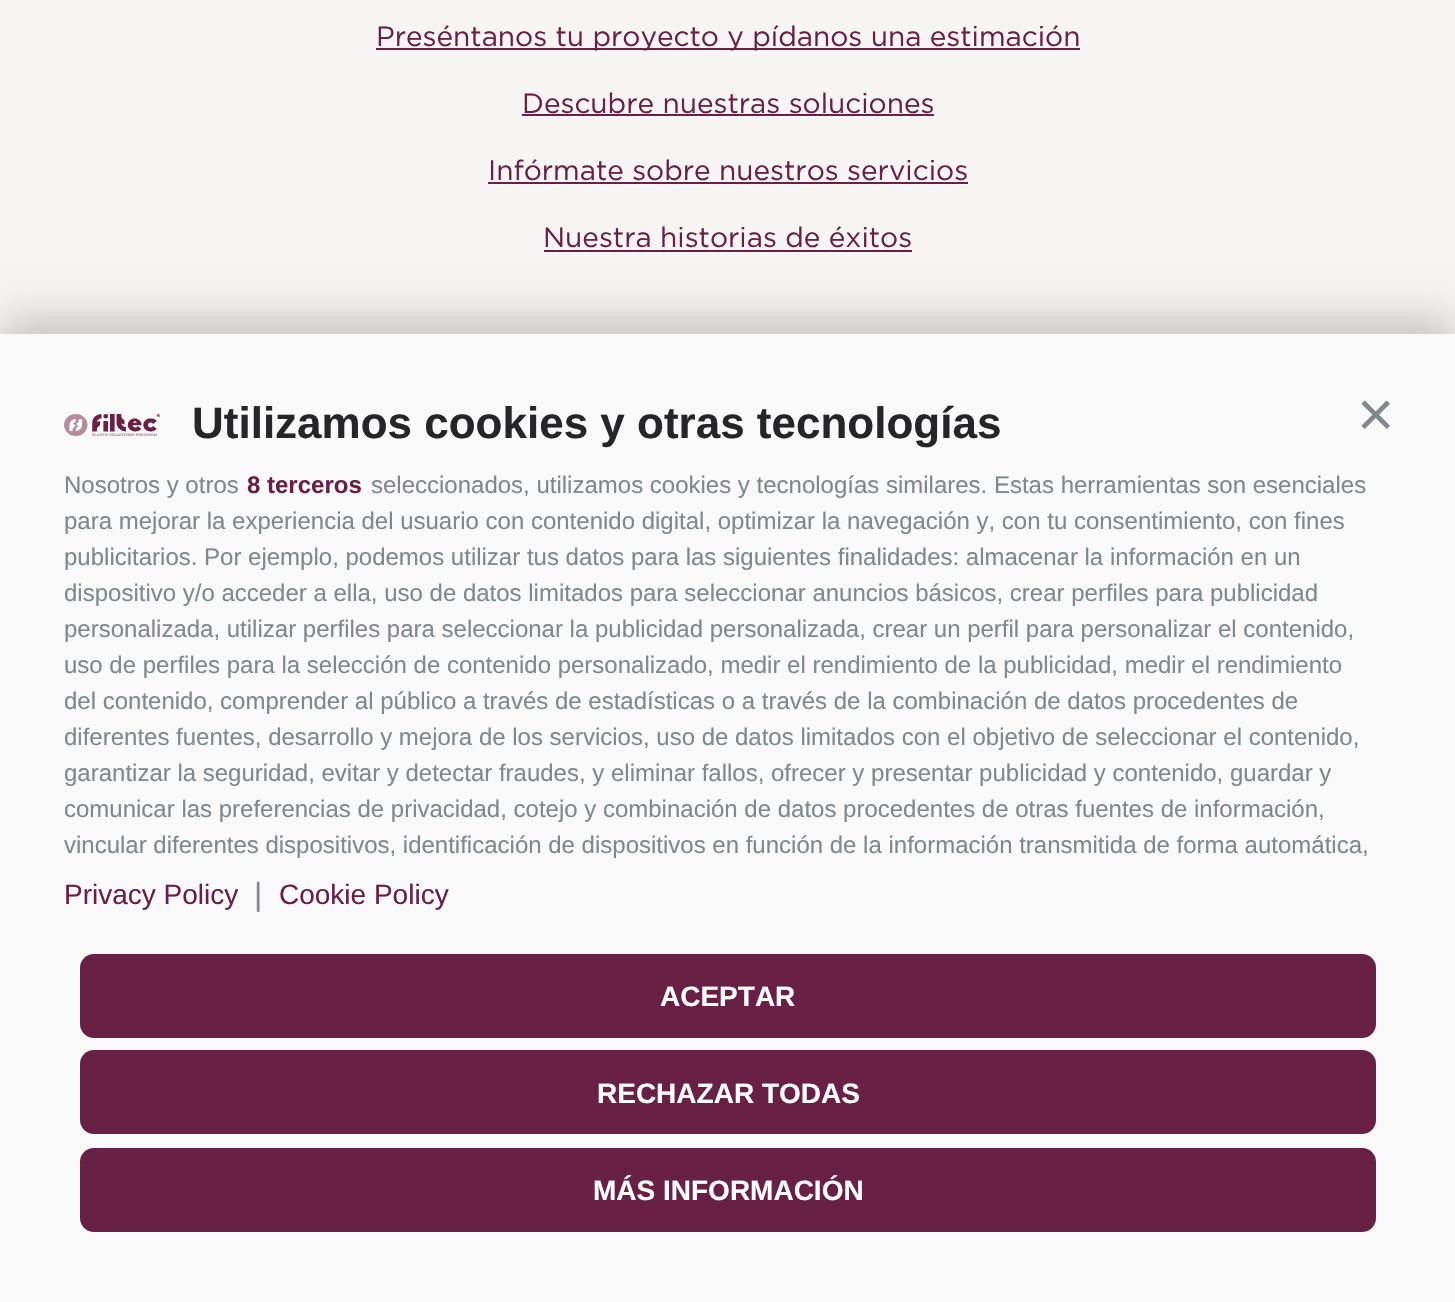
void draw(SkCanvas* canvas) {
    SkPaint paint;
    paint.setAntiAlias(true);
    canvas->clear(0xFFF6F5F4);
    paint.setColor(0xFF682145);
    canvas->drawRect(SkRect::MakeXYWH(376, 48, 704, 2), paint);
    SkFont font1(fontMgr->matchFamilyStyle("Gotham", SkFontStyle::Normal()), 28);
    font1.setSubpixel(true);
    canvas->drawString("Preséntanos tu proyecto y pídanos una estimación", 376, 46, font1, paint);
    canvas->drawString("Descubre nuestras soluciones", 522, 113, font1, paint);
    canvas->drawRect(SkRect::MakeXYWH(522, 114, 412, 2), paint);
    canvas->drawString("Infórmate sobre nuestros servicios", 488, 180, font1, paint);
    canvas->drawRect(SkRect::MakeXYWH(488, 182, 480, 2), paint);
    canvas->drawString("Nuestra historias de éxitos", 543, 247, font1, paint);
    canvas->drawRect(SkRect::MakeXYWH(544, 250, 368, 2), paint);
    paint.setColor(0x33000000);
    paint.setMaskFilter(SkMaskFilter::MakeBlur(kNormal_SkBlurStyle, 20));
    canvas->drawRect(SkRect::MakeXYWH(0, 318, 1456, 968), paint);
    paint.setMaskFilter(nullptr);
    paint.setColor(0xFFF9F9F9);
    canvas->drawRect(SkRect::MakeXYWH(0, 334, 1455, 968), paint);
    canvas->drawImageRect(SkImages::DeferredFromEncodedData(SkData::MakeFromFileName("img1.png")), SkRect::MakeXYWH(64, 414, 96, 22), SkSamplingOptions());
    SkFont font2(fontMgr->matchFamilyStyle("Liberation Sans", SkFontStyle::Bold()), 44);
    font2.setSubpixel(true);
    paint.setColor(0xFF262628);
    canvas->drawString("Utilizamos cookies y otras tecnologías", 192, 438, font2, paint);
    SkFont font3(fontMgr->matchFamilyStyle("Liberation Sans", SkFontStyle::Normal()), 64);
    font3.setSubpixel(true);
    paint.setColor(0xFF80888C);
    canvas->drawString("×", 1357, 436, font3, paint);
    SkFont font4(fontMgr->matchFamilyStyle("Liberation Sans", SkFontStyle::Normal()), 24);
    font4.setSubpixel(true);
    canvas->drawString("Nosotros y otros", 64, 493, font4, paint);
    SkFont font5(fontMgr->matchFamilyStyle("Liberation Sans", SkFontStyle::Bold()), 24);
    font5.setSubpixel(true);
    paint.setColor(0xFF682145);
    canvas->drawString("8 terceros", 247, 493, font5, paint);
    paint.setColor(0xFF80888C);
    canvas->drawString("seleccionados, utilizamos cookies y tecnologías similares. Estas herramientas son esenciales", 371, 493, font4, paint);
    canvas->drawString("para mejorar la experiencia del usuario con contenido digital, optimizar la navegación y, con tu consentimiento, con fines", 64, 529, font4, paint);
    canvas->drawString("publicitarios. Por ejemplo, podemos utilizar tus datos para las siguientes finalidades: almacenar la información en un", 64, 565, font4, paint);
    canvas->drawString("dispositivo y/o acceder a ella, uso de datos limitados para seleccionar anuncios básicos, crear perfiles para publicidad", 64, 601, font4, paint);
    canvas->drawString("personalizada, utilizar perfiles para seleccionar la publicidad personalizada, crear un perfil para personalizar el contenido,", 64, 637, font4, paint);
    canvas->drawString("uso de perfiles para la selección de contenido personalizado, medir el rendimiento de la publicidad, medir el rendimiento", 64, 673, font4, paint);
    canvas->drawString("del contenido, comprender al público a través de estadísticas o a través de la combinación de datos procedentes de", 64, 709, font4, paint);
    canvas->drawString("diferentes fuentes, desarrollo y mejora de los servicios, uso de datos limitados con el objetivo de seleccionar el contenido,", 64, 745, font4, paint);
    canvas->drawString("garantizar la seguridad, evitar y detectar fraudes, y eliminar fallos, ofrecer y presentar publicidad y contenido, guardar y", 64, 781, font4, paint);
    canvas->drawString("comunicar las preferencias de privacidad, cotejo y combinación de datos procedentes de otras fuentes de información,", 64, 817, font4, paint);
    canvas->drawString("vincular diferentes dispositivos, identificación de dispositivos en función de la información transmitida de forma automática,", 64, 853, font4, paint);
    SkFont font6(fontMgr->matchFamilyStyle("Liberation Sans", SkFontStyle::Normal()), 28);
    font6.setSubpixel(true);
    paint.setColor(0xFF682145);
    canvas->drawString("Privacy Policy", 64, 904, font6, paint);
    SkFont font7(fontMgr->matchFamilyStyle("Liberation Sans", SkFontStyle::Normal()), 32);
    font7.setSubpixel(true);
    paint.setColor(0xFF80888C);
    canvas->drawString("|", 254, 905, font7, paint);
    paint.setColor(0xFF682145);
    canvas->drawString("Cookie Policy", 279, 904, font6, paint);
    canvas->drawRoundRect(SkRect::MakeXYWH(80, 954, 1296, 84), 14, 14, paint);
    SkFont font8(fontMgr->matchFamilyStyle("Liberation Sans", SkFontStyle::Bold()), 28);
    font8.setSubpixel(true);
    paint.setColor(0xFFFFFFFF);
    canvas->drawString("ACEPTAR", 660, 1006, font8, paint);
    paint.setColor(0xFF682145);
    canvas->drawRoundRect(SkRect::MakeXYWH(80, 1050, 1296, 84), 14, 14, paint);
    paint.setColor(0xFFFFFFFF);
    canvas->drawString("RECHAZAR TODAS", 597, 1103, font8, paint);
    paint.setColor(0xFF682145);
    canvas->drawRoundRect(SkRect::MakeXYWH(80, 1148, 1296, 84), 14, 14, paint);
    paint.setColor(0xFFFFFFFF);
    canvas->drawString("MÁS INFORMACIÓN", 593, 1200, font8, paint);
}
